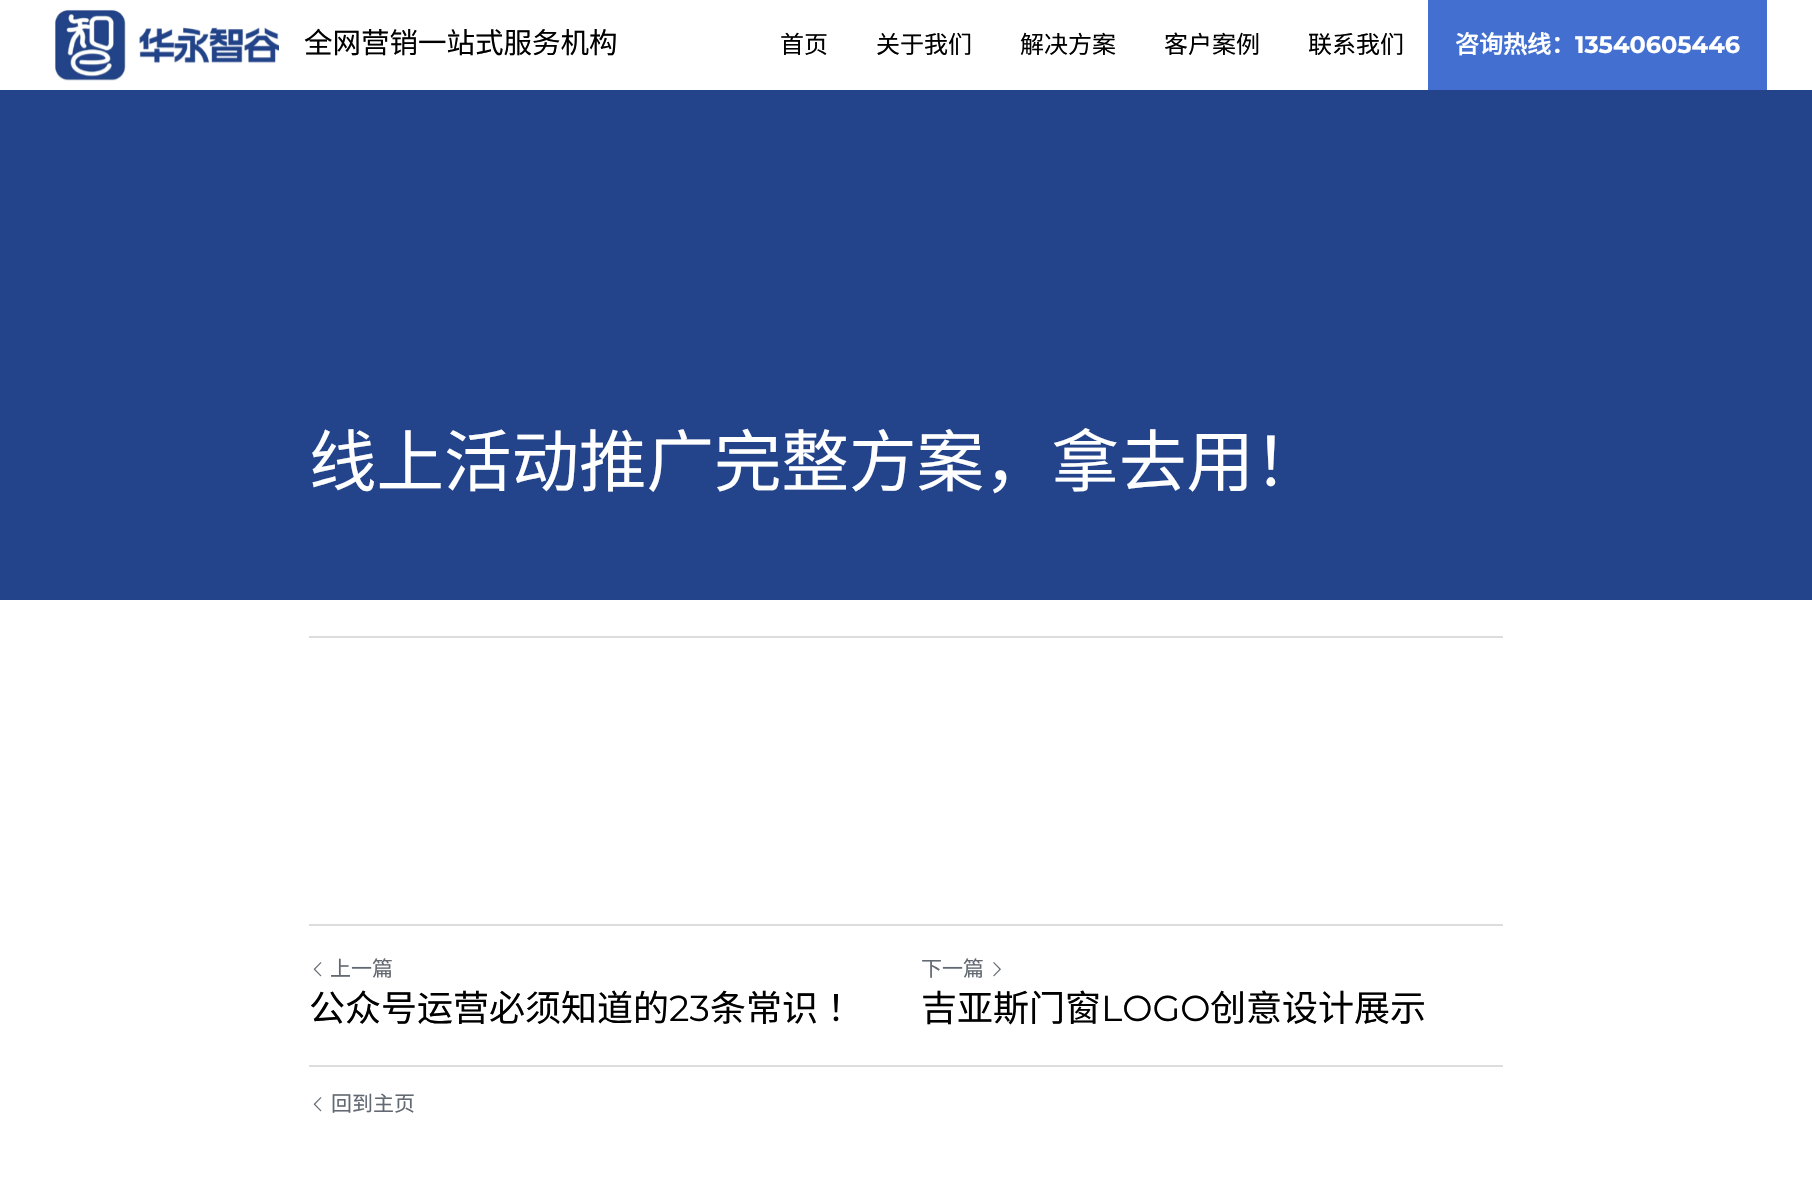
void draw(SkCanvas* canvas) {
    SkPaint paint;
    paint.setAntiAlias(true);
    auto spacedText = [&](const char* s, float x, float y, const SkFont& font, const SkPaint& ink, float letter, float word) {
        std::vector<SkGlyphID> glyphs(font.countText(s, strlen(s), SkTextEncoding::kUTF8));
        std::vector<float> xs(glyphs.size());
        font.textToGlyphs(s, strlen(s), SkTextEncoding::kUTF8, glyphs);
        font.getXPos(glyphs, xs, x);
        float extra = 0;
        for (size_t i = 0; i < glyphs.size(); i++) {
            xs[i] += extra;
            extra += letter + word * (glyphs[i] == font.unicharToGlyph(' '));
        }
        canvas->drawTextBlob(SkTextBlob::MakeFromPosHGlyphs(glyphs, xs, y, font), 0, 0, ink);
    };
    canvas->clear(0xFFFFFFFF);
    canvas->drawImageRect(SkImages::DeferredFromEncodedData(SkData::MakeFromFileName("img1.png")), SkRect::MakeXYWH(54, 9, 225, 72), SkSamplingOptions());
    SkFont font1(fontMgr->matchFamilyStyle("Noto Sans CJK SC", SkFontStyle::Normal()), 28.5f);
    font1.setSubpixel(true);
    paint.setColor(0xFF000000);
    canvas->drawString("全网营销一站式服务机构", 304, 53, font1, paint);
    SkFont font2(fontMgr->matchFamilyStyle("Noto Sans CJK SC", SkFontStyle::Normal()), 24);
    font2.setSubpixel(true);
    canvas->drawString("首页", 780, 53, font2, paint);
    canvas->drawString("关于我们", 876, 53, font2, paint);
    canvas->drawString("解决方案", 1020, 53, font2, paint);
    canvas->drawString("客户案例", 1164, 53, font2, paint);
    canvas->drawString("联系我们", 1308, 53, font2, paint);
    paint.setColor(0xFF4370D0);
    canvas->drawRect(SkRect::MakeXYWH(1428, 0, 339, 90), paint);
    SkFont font3(fontMgr->matchFamilyStyle("Noto Sans CJK SC", SkFontStyle::Bold()), 24);
    font3.setSubpixel(true);
    paint.setColor(0xFFFFFFFF);
    canvas->drawString("咨询热线：", 1455, 53, font3, paint);
    SkFont font4(fontMgr->matchFamilyStyle("Montserrat", SkFontStyle::Bold()), 24);
    font4.setSubpixel(true);
    canvas->drawString("13540605446", 1575, 53, font4, paint);
    paint.setColor(0xFF23448B);
    canvas->drawRect(SkRect::MakeXYWH(0, 90, 1812, 510), paint);
    SkFont font5(fontMgr->matchFamilyStyle("Noto Sans CJK SC", SkFontStyle::Normal()), 67.5f);
    font5.setSubpixel(true);
    paint.setColor(0xFFFFFFFF);
    canvas->drawString("线上活动推广完整方案，拿去用！", 309, 486, font5, paint);
    paint.setColor(0xFFDDDDDD);
    canvas->drawRect(SkRect::MakeXYWH(309, 636, 1194, 2), paint);
    canvas->drawRect(SkRect::MakeXYWH(309, 924, 1194, 2), paint);
    canvas->drawImageRect(SkImages::DeferredFromEncodedData(SkData::MakeFromFileName("img2.png")), SkRect::MakeXYWH(313, 962, 9, 15), SkSamplingOptions());
    SkFont font6(fontMgr->matchFamilyStyle("Noto Sans CJK SC", SkFontStyle::Normal()), 21);
    font6.setSubpixel(true);
    paint.setColor(0xFF636972);
    canvas->drawString("上一篇", 330, 976, font6, paint);
    SkFont font7(fontMgr->matchFamilyStyle("Noto Sans CJK SC", SkFontStyle::Normal()), 36);
    font7.setSubpixel(true);
    paint.setColor(0xFF000000);
    canvas->drawString("公众号运营必须知道的", 309, 1021, font7, paint);
    SkFont font8(fontMgr->matchFamilyStyle("Montserrat", SkFontStyle::Normal()), 36);
    font8.setSubpixel(true);
    canvas->drawString("23", 669, 1021, font8, paint);
    spacedText("条常识 ！", 710, 1021, font7, paint, 0, 1);
    paint.setColor(0xFF636972);
    canvas->drawString("下一篇", 921, 976, font6, paint);
    canvas->drawImageRect(SkImages::DeferredFromEncodedData(SkData::MakeFromFileName("img3.png")), SkRect::MakeXYWH(993, 962, 8, 15), SkSamplingOptions());
    paint.setColor(0xFF000000);
    canvas->drawString("吉亚斯门窗", 921, 1021, font7, paint);
    canvas->drawString("LOGO", 1101, 1021, font8, paint);
    canvas->drawString("创意设计展示", 1210, 1021, font7, paint);
    paint.setColor(0xFFDDDDDD);
    canvas->drawRect(SkRect::MakeXYWH(309, 1065, 1194, 2), paint);
    canvas->drawImageRect(SkImages::DeferredFromEncodedData(SkData::MakeFromFileName("img2.png")), SkRect::MakeXYWH(313, 1097, 9, 15), SkSamplingOptions());
    paint.setColor(0xFF636972);
    canvas->drawString("回到主页", 331, 1111, font6, paint);
}
